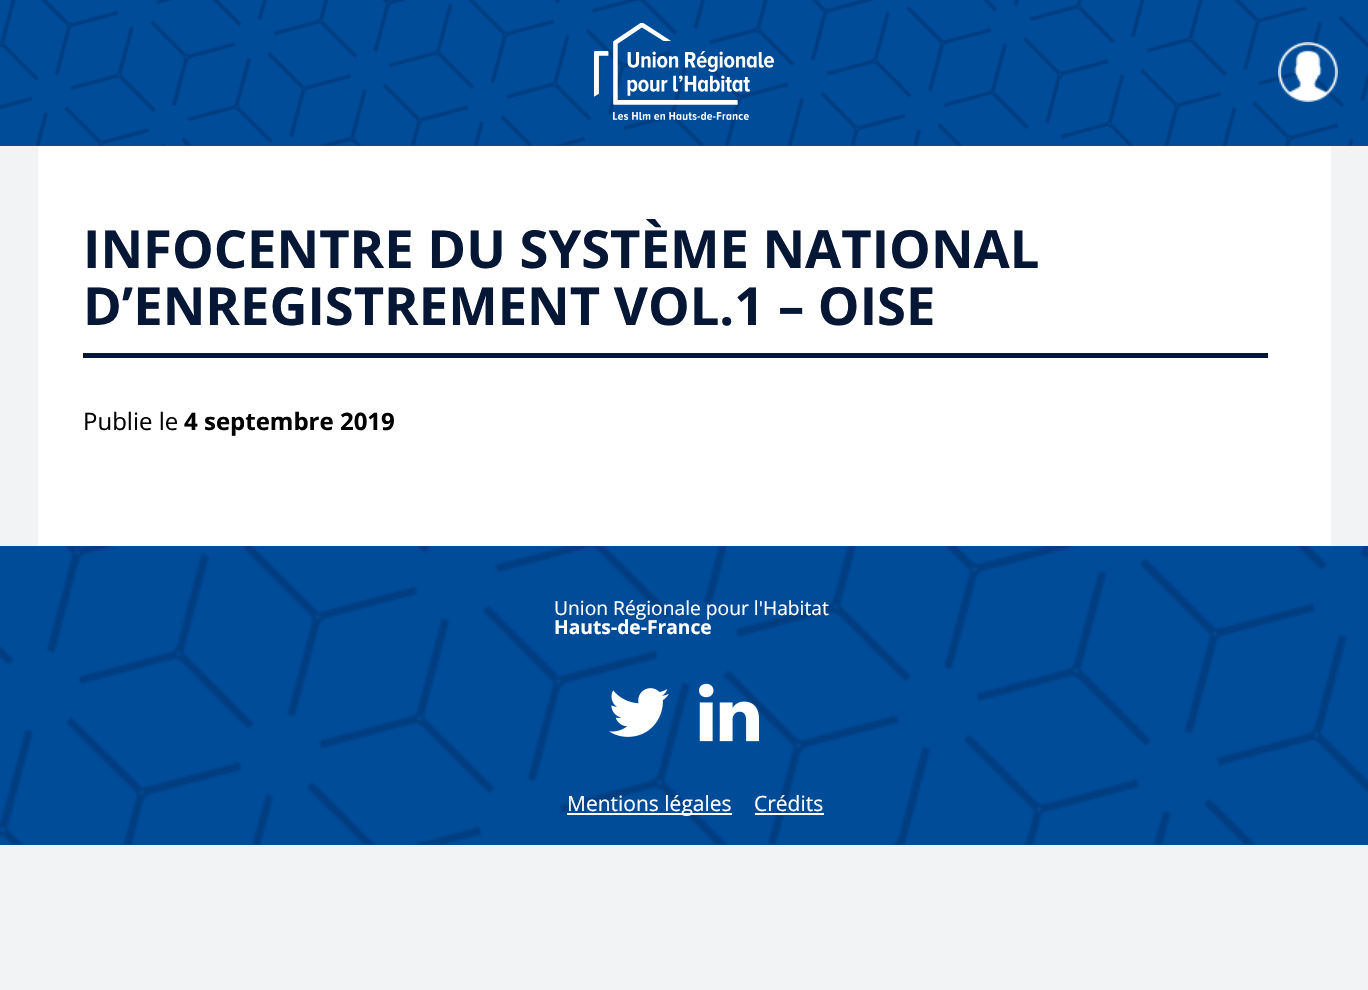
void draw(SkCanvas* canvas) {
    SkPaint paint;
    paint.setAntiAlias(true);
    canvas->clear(0xFFF2F3F5);
    paint.setColor(0xFF004C9B);
    canvas->drawRect(SkRect::MakeXYWH(0, 145, 1368, 1), paint);
    canvas->drawImageRect(SkImages::DeferredFromEncodedData(SkData::MakeFromFileName("img1.png")), SkRect::MakeXYWH(0, 0, 1368, 146), SkSamplingOptions());
    canvas->drawImageRect(SkImages::DeferredFromEncodedData(SkData::MakeFromFileName("img2.png")), SkRect::MakeXYWH(594, 23, 180, 97), SkSamplingOptions());
    canvas->drawImageRect(SkImages::DeferredFromEncodedData(SkData::MakeFromFileName("img3.png")), SkRect::MakeXYWH(1278, 42, 60, 60), SkSamplingOptions());
    paint.setColor(0xFFFFFFFF);
    canvas->drawRect(SkRect::MakeXYWH(38, 146, 1293, 400), paint);
    SkFont font1(fontMgr->matchFamilyStyle("Open Sans", SkFontStyle::Bold()), 52.5f);
    font1.setSubpixel(true);
    paint.setColor(0xFF061735);
    canvas->drawString("INFOCENTRE DU SYSTÈME NATIONAL", 83, 268, font1, paint);
    canvas->drawString("D’ENREGISTREMENT VOL.1 – OISE", 83, 325, font1, paint);
    canvas->drawRect(SkRect::MakeXYWH(83, 353, 1185, 5), paint);
    SkFont font2(fontMgr->matchFamilyStyle("Open Sans", SkFontStyle::Normal()), 24);
    font2.setSubpixel(true);
    paint.setColor(0xFF000000);
    canvas->drawString("Publie le", 83, 430, font2, paint);
    SkFont font3(fontMgr->matchFamilyStyle("Open Sans", SkFontStyle::Bold()), 24);
    font3.setSubpixel(true);
    canvas->drawString("4 septembre 2019", 184, 430, font3, paint);
    paint.setColor(0xFF004C9B);
    canvas->drawRect(SkRect::MakeXYWH(0, 844, 1368, 1), paint);
    canvas->drawImageRect(SkImages::DeferredFromEncodedData(SkData::MakeFromFileName("img4.png")), SkRect::MakeXYWH(0, 546, 1368, 299), SkSamplingOptions());
    SkFont font4(fontMgr->matchFamilyStyle("Open Sans", SkFontStyle::Normal()), 19.25f);
    font4.setSubpixel(true);
    paint.setColor(0xFFFFFFFF);
    canvas->drawString("Union Régionale pour l'Habitat", 554, 615, font4, paint);
    SkFont font5(fontMgr->matchFamilyStyle("Open Sans", SkFontStyle::Bold()), 19.25f);
    font5.setSubpixel(true);
    canvas->drawString("Hauts-de-France", 554, 634, font5, paint);
    canvas->drawImageRect(SkImages::DeferredFromEncodedData(SkData::MakeFromFileName("img5.png")), SkRect::MakeXYWH(609, 688, 60, 49), SkSamplingOptions());
    canvas->drawImageRect(SkImages::DeferredFromEncodedData(SkData::MakeFromFileName("img6.png")), SkRect::MakeXYWH(699, 683, 60, 59), SkSamplingOptions());
    canvas->drawRect(SkRect::MakeXYWH(567, 813, 165, 2), paint);
    SkFont font6(fontMgr->matchFamilyStyle("Open Sans", SkFontStyle::Normal()), 21);
    font6.setSubpixel(true);
    canvas->drawString("Mentions légales", 567, 811, font6, paint);
    canvas->drawString("Crédits", 754, 811, font6, paint);
    canvas->drawRect(SkRect::MakeXYWH(755, 813, 69, 2), paint);
}
